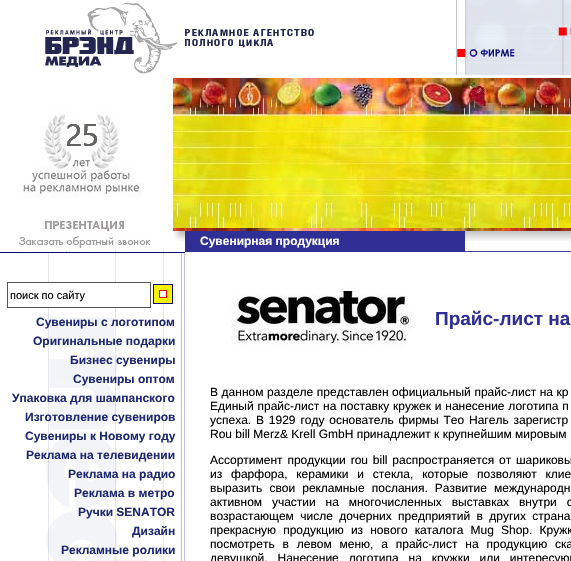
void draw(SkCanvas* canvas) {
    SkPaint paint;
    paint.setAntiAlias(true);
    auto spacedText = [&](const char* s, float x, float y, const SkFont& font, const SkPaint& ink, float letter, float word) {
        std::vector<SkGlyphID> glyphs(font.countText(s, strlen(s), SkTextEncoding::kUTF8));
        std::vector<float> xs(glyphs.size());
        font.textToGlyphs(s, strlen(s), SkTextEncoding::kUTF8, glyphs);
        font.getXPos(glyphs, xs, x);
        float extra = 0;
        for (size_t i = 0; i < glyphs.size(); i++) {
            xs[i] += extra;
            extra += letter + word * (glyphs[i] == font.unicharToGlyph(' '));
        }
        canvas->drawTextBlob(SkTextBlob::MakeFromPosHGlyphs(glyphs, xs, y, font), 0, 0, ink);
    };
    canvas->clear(0xFFFFFFFF);
    canvas->drawImageRect(SkImages::DeferredFromEncodedData(SkData::MakeFromFileName("img1.png")), SkRect::MakeXYWH(45, 2, 269, 72), SkSamplingOptions());
    canvas->drawImageRect(SkImages::DeferredFromEncodedData(SkData::MakeFromFileName("img2.png")), SkRect::MakeXYWH(456, 0, 115, 75), SkSamplingOptions());
    canvas->drawImageRect(SkImages::DeferredFromEncodedData(SkData::MakeFromFileName("img3.png")), SkRect::MakeXYWH(21, 78, 152, 135), SkSamplingOptions());
    canvas->drawImageRect(SkImages::DeferredFromEncodedData(SkData::MakeFromFileName("img7.png")), SkRect::MakeXYWH(0, 231, 185, 22), SkSamplingOptions());
    canvas->drawImageRect(SkImages::DeferredFromEncodedData(SkData::MakeFromFileName("img4.png")), SkRect::MakeXYWH(17, 213, 156, 37), SkSamplingOptions());
    canvas->drawImageRect(SkImages::DeferredFromEncodedData(SkData::MakeFromFileName("img5.png")), SkRect::MakeXYWH(173, 78, 398, 153), SkSamplingOptions());
    canvas->drawImageRect(SkImages::DeferredFromEncodedData(SkData::MakeFromFileName("img6.png")), SkRect::MakeXYWH(48, 253, 137, 57), SkSamplingOptions());
    paint.setColor(0xFFFFFFFF);
    canvas->drawRect(SkRect::MakeXYWH(48, 283, 68, 24), paint);
    paint.setStyle(SkPaint::kStroke_Style);
    paint.setStrokeWidth(1);
    paint.setColor(0xFF555555);
    canvas->drawRect(SkRect::MakeXYWH(7.5f, 282.5f, 143, 25), paint);
    SkFont font1(fontMgr->matchFamilyStyle("Liberation Sans", SkFontStyle::Normal()), 11);
    font1.setSubpixel(true);
    paint.setStyle(SkPaint::kFill_Style);
    paint.setColor(0xFF000000);
    canvas->drawString("поиск по сайту", 10, 299, font1, paint);
    canvas->drawImageRect(SkImages::DeferredFromEncodedData(SkData::MakeFromFileName("img8.png")), SkRect::MakeXYWH(153, 284, 20, 20), SkSamplingOptions());
    canvas->drawImageRect(SkImages::DeferredFromEncodedData(SkData::MakeFromFileName("img9.png")), SkRect::MakeXYWH(46, 310, 139, 251), SkSamplingOptions());
    SkFont font2(fontMgr->matchFamilyStyle("Liberation Sans", SkFontStyle::Bold()), 12);
    font2.setSubpixel(true);
    paint.setColor(0xFF1E2870);
    canvas->drawString("Сувениры с логотипом", 36, 326, font2, paint);
    canvas->drawString("Оригинальные подарки", 33, 345, font2, paint);
    canvas->drawString("Бизнес сувениры", 70, 364, font2, paint);
    canvas->drawString("Сувениры оптом", 73, 383, font2, paint);
    canvas->drawString("Упаковка для шампанского", 12, 402, font2, paint);
    canvas->drawString("Изготовление сувениров", 25, 421, font2, paint);
    canvas->drawString("Сувениры к Новому году", 25, 440, font2, paint);
    canvas->drawString("Реклама на телевидении", 26, 459, font2, paint);
    canvas->drawString("Реклама на радио", 68, 478, font2, paint);
    canvas->drawString("Реклама в метро", 74, 497, font2, paint);
    canvas->drawString("Ручки SENATOR", 78, 516, font2, paint);
    canvas->drawString("Дизайн", 132, 535, font2, paint);
    canvas->drawString("Рекламные ролики", 61, 554, font2, paint);
    canvas->drawImageRect(SkImages::DeferredFromEncodedData(SkData::MakeFromFileName("img10.png")), SkRect::MakeXYWH(465, 231, 106, 10), SkSamplingOptions());
    paint.setColor(0xFF2F2F95);
    canvas->drawRect(SkRect::MakeXYWH(185, 231, 280, 21), paint);
    paint.setColor(0xFFFFFFFF);
    canvas->drawString("Сувенирная продукция", 200, 245, font2, paint);
    paint.setColor(0xFF40409C);
    canvas->drawRect(SkRect::MakeXYWH(465, 251, 106, 1), paint);
    canvas->drawImageRect(SkImages::DeferredFromEncodedData(SkData::MakeFromFileName("img11.png")), SkRect::MakeXYWH(231, 286, 184, 63), SkSamplingOptions());
    SkFont font3(fontMgr->matchFamilyStyle("Liberation Sans", SkFontStyle::Bold()), 19);
    font3.setSubpixel(true);
    paint.setColor(0xFF2F2F95);
    canvas->drawString("Прайс-лист на", 435, 325, font3, paint);
    SkFont font4(fontMgr->matchFamilyStyle("Liberation Sans", SkFontStyle::Normal()), 12);
    font4.setSubpixel(true);
    paint.setColor(0xFF000000);
    spacedText("В данном разделе представлен официальный прайс-лист на кр", 210, 396, font4, paint, 0, 0.25f);
    spacedText("Единый прайс-лист на поставку кружек и нанесение логотипа п", 210, 410, font4, paint, 0, 0.5f);
    spacedText("успеха. В 1929 году основатель фирмы Тео Нагель зарегистр", 210, 424, font4, paint, 0, 1.5f);
    canvas->drawString("Rou bill Merz& Krell GmbH принадлежит к крупнейшим мировым", 210, 438, font4, paint);
    spacedText("Ассортимент продукции rou bill распространяется от шариковы", 210, 464, font4, paint, 0, 1.5f);
    spacedText("из фарфора, керамики и стекла, которые позволяют клие", 210, 478, font4, paint, 0, 5.5f);
    spacedText("выразить свои рекламные послания. Развитие международн", 210, 492, font4, paint, 0, 3.75f);
    spacedText("активном участии на многочисленных выставках внутри с", 210, 506, font4, paint, 0, 6.5f);
    spacedText("возрастающем числе дочерних предприятий в других страна", 210, 520, font4, paint, 0, 3);
    spacedText("прекрасную продукцию из нового каталога Mug Shop. Кружк", 210, 534, font4, paint, 0, 3.75f);
    spacedText("посмотреть в левом меню, а прайс-лист на продукцию ска", 210, 548, font4, paint, 0, 4.5f);
    spacedText("девушкой. Нанесение логотипа на кружки или интересующ", 210, 562, font4, paint, 0, 6.5f);
}
